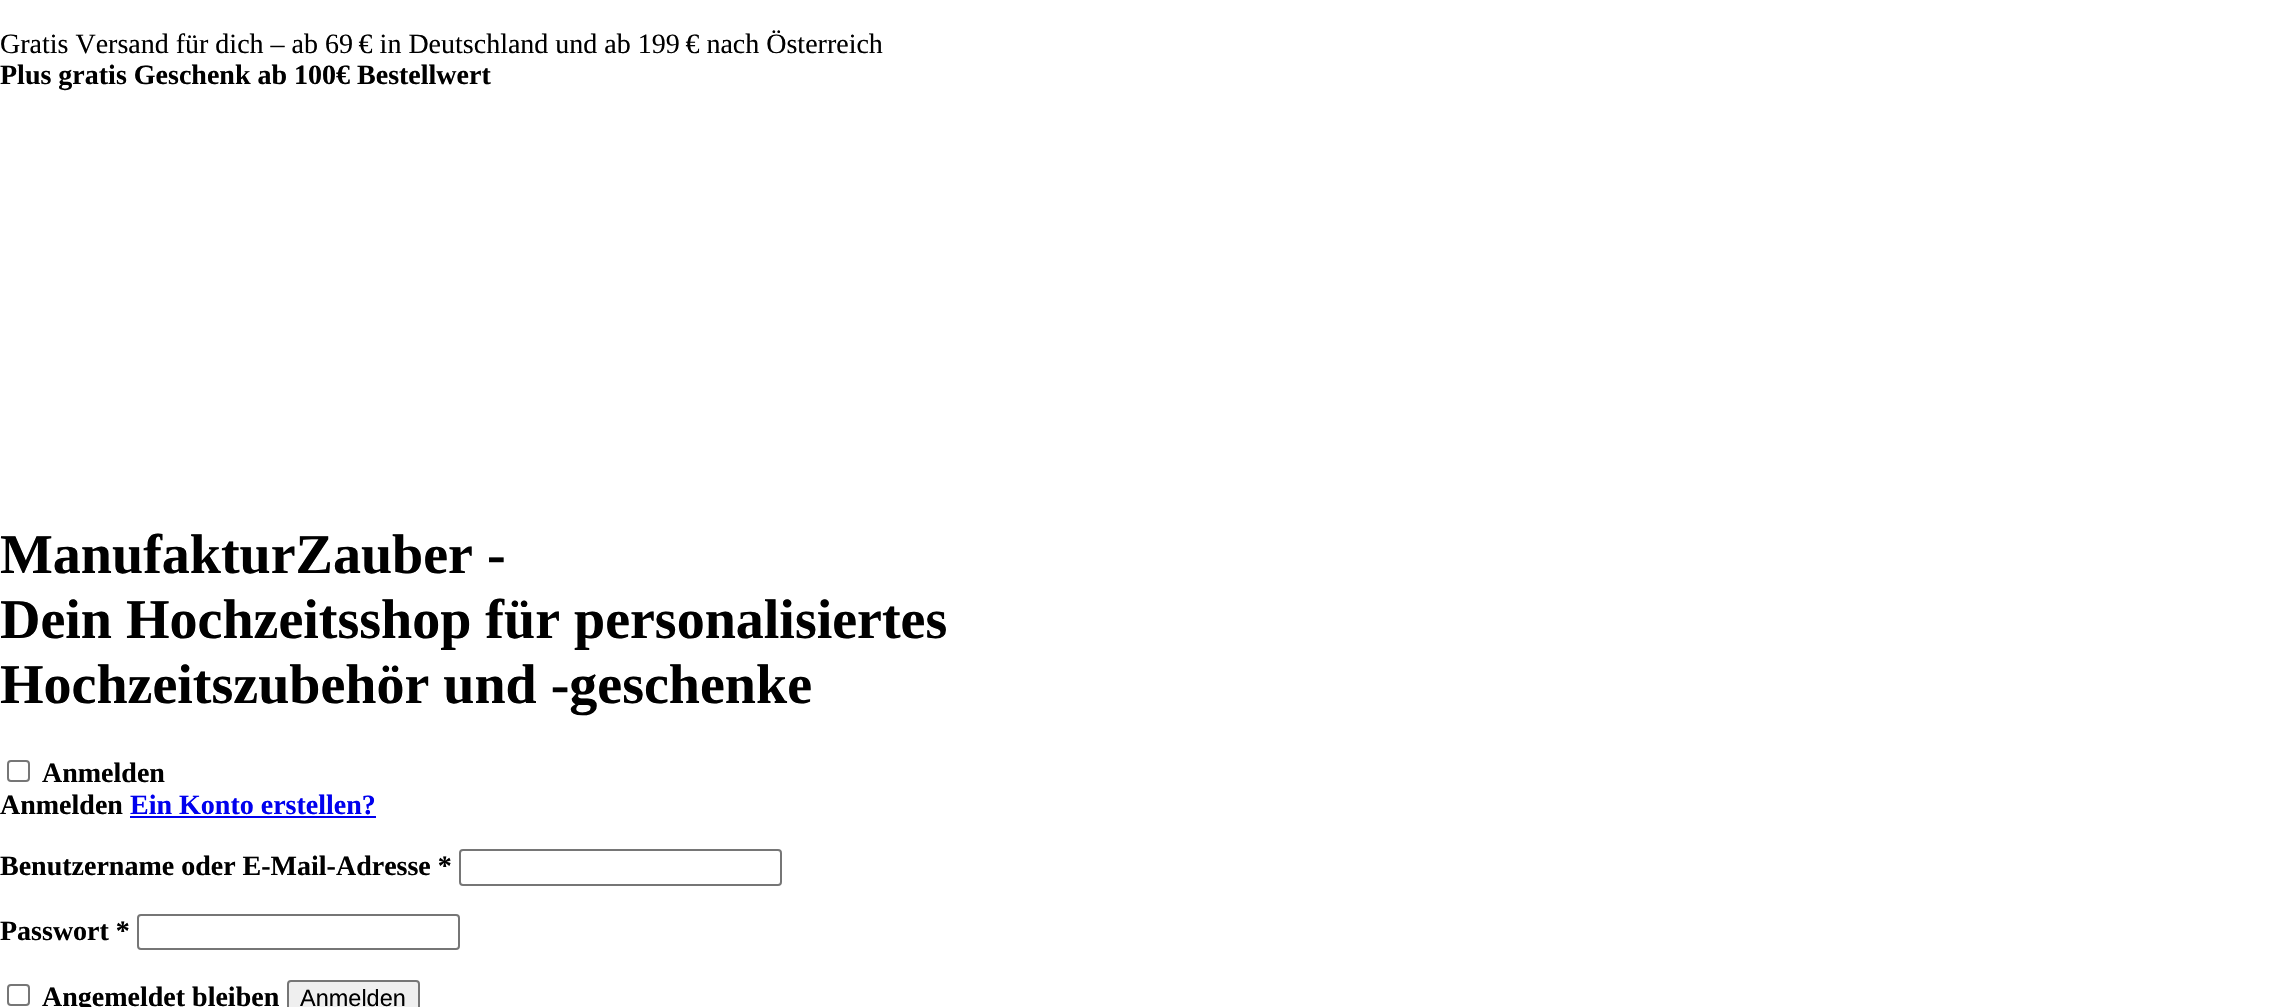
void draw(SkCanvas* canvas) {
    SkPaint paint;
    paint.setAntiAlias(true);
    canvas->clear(0xFFFFFFFF);
    SkFont font1(fontMgr->matchFamilyStyle("Liberation Serif", SkFontStyle::Normal()), 28);
    font1.setSubpixel(true);
    paint.setColor(0xFF000000);
    canvas->drawString("Gratis Versand für dich – ab 69 € in Deutschland und ab 199 € nach Österreich", 0, 53, font1, paint);
    SkFont font2(fontMgr->matchFamilyStyle("Liberation Serif", SkFontStyle::Bold()), 28);
    font2.setSubpixel(true);
    canvas->drawString("Plus gratis Geschenk ab 100€ Bestellwert", 0, 84, font2, paint);
    SkFont font3(fontMgr->matchFamilyStyle("Liberation Serif", SkFontStyle::Bold()), 56);
    font3.setSubpixel(true);
    canvas->drawString("ManufakturZauber -", 0, 573, font3, paint);
    canvas->drawString("Dein Hochzeitsshop für personalisiertes", 0, 638, font3, paint);
    canvas->drawString("Hochzeitszubehör und -geschenke", 0, 703, font3, paint);
    paint.setStyle(SkPaint::kStroke_Style);
    paint.setStrokeWidth(2);
    paint.setColor(0xFF767676);
    canvas->drawRoundRect(SkRect::MakeXYWH(8, 761, 21, 20), 3, 3, paint);
    paint.setStyle(SkPaint::kFill_Style);
    paint.setColor(0xFF000000);
    canvas->drawString("Anmelden", 42, 782, font2, paint);
    canvas->drawString("Anmelden", 0, 814, font2, paint);
    paint.setColor(0xFF0000EE);
    canvas->drawString("Ein Konto erstellen?", 130, 814, font2, paint);
    canvas->drawRect(SkRect::MakeXYWH(130, 816, 246, 2), paint);
    paint.setColor(0xFF000000);
    canvas->drawString("Benutzername oder E-Mail-Adresse *", 0, 875, font2, paint);
    paint.setStyle(SkPaint::kStroke_Style);
    paint.setColor(0xFF767676);
    canvas->drawRoundRect(SkRect::MakeXYWH(460, 850, 321, 35), 3, 3, paint);
    paint.setStyle(SkPaint::kFill_Style);
    paint.setColor(0xFF000000);
    canvas->drawString("Passwort *", 0, 940, font2, paint);
    paint.setStyle(SkPaint::kStroke_Style);
    paint.setColor(0xFF767676);
    canvas->drawRoundRect(SkRect::MakeXYWH(138, 915, 321, 34), 3, 3, paint);
    canvas->drawRoundRect(SkRect::MakeXYWH(8, 985, 21, 20), 3, 3, paint);
    paint.setStyle(SkPaint::kFill_Style);
    paint.setColor(0xFF000000);
    canvas->drawString("Angemeldet bleiben", 42, 1006, font2, paint);
    paint.setColor(0xFFEFEFEF);
    canvas->drawRoundRect(SkRect::MakeXYWH(288, 981, 131, 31), 3, 3, paint);
    paint.setStyle(SkPaint::kStroke_Style);
    paint.setColor(0xFF767676);
    canvas->drawRoundRect(SkRect::MakeXYWH(288, 981, 131, 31), 3, 3, paint);
    SkFont font4(fontMgr->matchFamilyStyle("Liberation Sans", SkFontStyle::Normal()), 23.5f);
    font4.setSubpixel(true);
    paint.setStyle(SkPaint::kFill_Style);
    paint.setColor(0xFF000000);
    canvas->drawString("Anmelden", 300, 1006, font4, paint);
}
